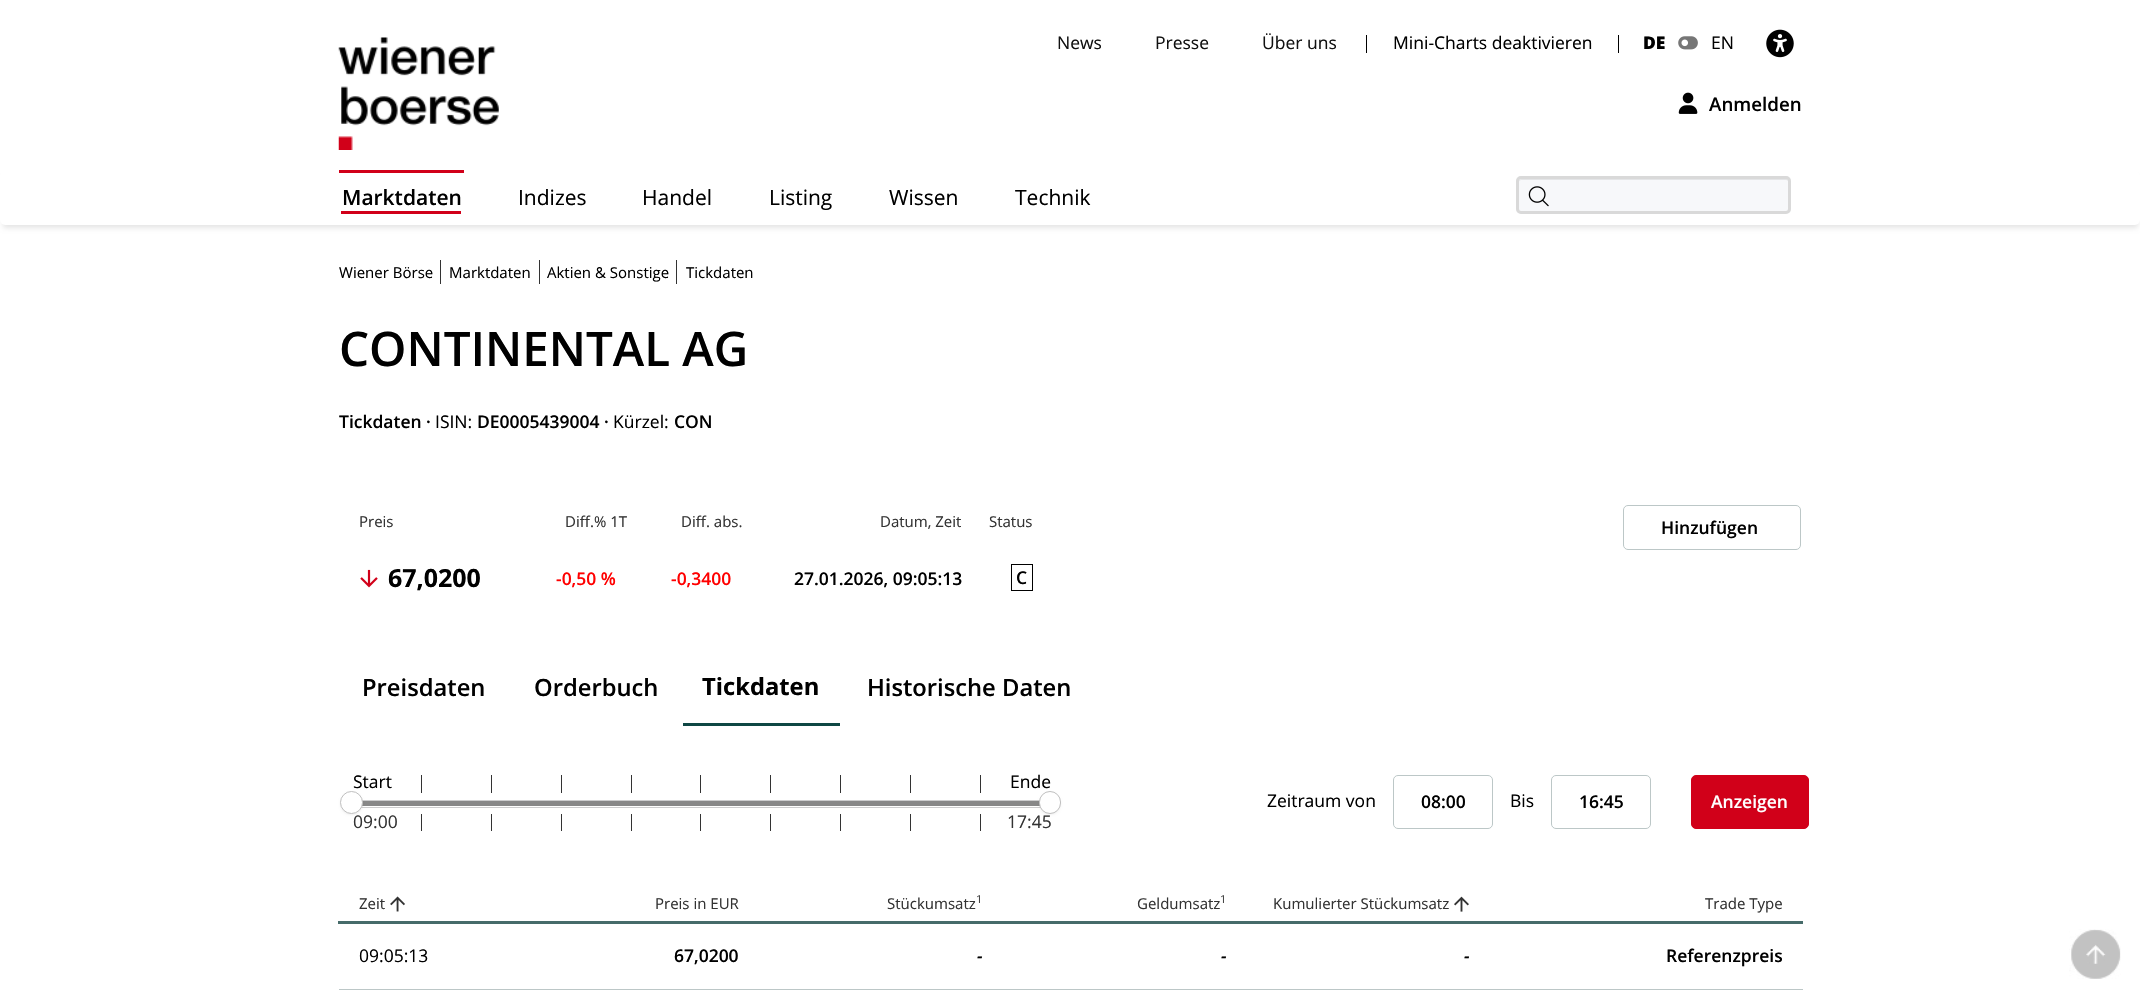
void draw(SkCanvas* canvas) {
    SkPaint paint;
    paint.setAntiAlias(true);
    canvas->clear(0xFFFFFFFF);
    SkFont font1(fontMgr->matchFamilyStyle("Open Sans", SkFontStyle::Normal()), 17.5f);
    font1.setSubpixel(true);
    paint.setColor(0xFF111111);
    canvas->drawString("News", 1057, 49, font1, paint);
    canvas->drawString("Presse", 1155, 49, font1, paint);
    canvas->drawString("Über uns", 1262, 49, font1, paint);
    paint.setColor(0xFF000000);
    canvas->drawRect(SkRect::MakeXYWH(1618, 35, 1, 18), paint);
    canvas->drawRect(SkRect::MakeXYWH(1366, 35, 1, 18), paint);
    canvas->drawString("Mini-Charts deaktivieren", 1393, 49, font1, paint);
    SkFont font2(fontMgr->matchFamilyStyle("Open Sans", SkFontStyle(800, SkFontStyle::kNormal_Width, SkFontStyle::kUpright_Slant)), 17.5f);
    font2.setSubpixel(true);
    canvas->drawString("DE", 1643, 49, font2, paint);
    canvas->drawImageRect(SkImages::DeferredFromEncodedData(SkData::MakeFromFileName("img1.png")), SkRect::MakeXYWH(1678, 36, 20, 14), SkSamplingOptions());
    canvas->drawString("EN", 1711, 49, font1, paint);
    canvas->drawImageRect(SkImages::DeferredFromEncodedData(SkData::MakeFromFileName("img2.png")), SkRect::MakeXYWH(1766, 29, 28, 29), SkSamplingOptions());
    canvas->drawImageRect(SkImages::DeferredFromEncodedData(SkData::MakeFromFileName("img3.png")), SkRect::MakeXYWH(338, 37, 161, 113), SkSamplingOptions());
    canvas->drawImageRect(SkImages::DeferredFromEncodedData(SkData::MakeFromFileName("img4.png")), SkRect::MakeXYWH(1678, 92, 20, 22), SkSamplingOptions());
    SkFont font3(fontMgr->matchFamilyStyle("Open Sans", SkFontStyle(600, SkFontStyle::kNormal_Width, SkFontStyle::kUpright_Slant)), 18.75f);
    font3.setSubpixel(true);
    canvas->drawString("Anmelden", 1709, 111, font3, paint);
    paint.setColor(0x1A000000);
    paint.setMaskFilter(SkMaskFilter::MakeBlur(kNormal_SkBlurStyle, 2.5f));
    canvas->drawRoundRect(SkRect::MakeXYWH(3, 178, 2135, 50), 2.5f, 2.5f, paint);
    paint.setMaskFilter(nullptr);
    paint.setColor(0xFFFFFFFF);
    canvas->drawRoundRect(SkRect::MakeXYWH(0, 170, 2140, 55), 5, 5, paint);
    SkFont font4(fontMgr->matchFamilyStyle("Open Sans", SkFontStyle(600, SkFontStyle::kNormal_Width, SkFontStyle::kUpright_Slant)), 21);
    font4.setSubpixel(true);
    paint.setColor(0xFF000000);
    canvas->drawString("Marktdaten", 342, 205, font4, paint);
    paint.setColor(0xFFD10019);
    canvas->drawRect(SkRect::MakeXYWH(339, 170, 125, 3), paint);
    canvas->drawRect(SkRect::MakeXYWH(341, 211, 120, 3), paint);
    SkFont font5(fontMgr->matchFamilyStyle("Open Sans", SkFontStyle::Normal()), 21);
    font5.setSubpixel(true);
    paint.setColor(0xFF000000);
    canvas->drawString("Indizes", 518, 205, font5, paint);
    canvas->drawString("Handel", 642, 205, font5, paint);
    canvas->drawString("Listing", 769, 205, font5, paint);
    canvas->drawString("Wissen", 889, 205, font5, paint);
    canvas->drawString("Technik", 1015, 205, font5, paint);
    paint.setColor(0xFFF7F8FA);
    canvas->drawRoundRect(SkRect::MakeXYWH(1516, 176, 275, 38), 5, 5, paint);
    paint.setColor(0xFFE4E5E7);
    canvas->drawPath(SkPathBuilder().moveTo(1521, 180).lineTo(1786, 180).cubicTo(1788, 180, 1789, 181, 1789, 182).cubicTo(1789, 180, 1788, 179, 1786, 179).lineTo(1522, 179).cubicTo(1520, 179, 1519, 180, 1519, 182).cubicTo(1519, 181, 1520, 180, 1521, 180).close().detach(), paint);
    paint.setStyle(SkPaint::kStroke_Style);
    paint.setStrokeWidth(3);
    paint.setColor(0xFFD9D9D9);
    canvas->drawRoundRect(SkRect::MakeXYWH(1517.5f, 177.5f, 272, 35), 3.5f, 3.5f, paint);
    canvas->drawImageRect(SkImages::DeferredFromEncodedData(SkData::MakeFromFileName("img5.png")), SkRect::MakeXYWH(1528, 186, 21, 21), SkSamplingOptions());
    paint.setStyle(SkPaint::kFill_Style);
    paint.setColor(0xFF333333);
    canvas->drawRect(SkRect::MakeXYWH(440, 260, 1, 24), paint);
    SkFont font6(fontMgr->matchFamilyStyle("Open Sans", SkFontStyle::Normal()), 15);
    font6.setSubpixel(true);
    paint.setColor(0xFF000000);
    canvas->drawString("Wiener Börse", 339, 278, font6, paint);
    paint.setColor(0xFF333333);
    canvas->drawRect(SkRect::MakeXYWH(539, 260, 1, 24), paint);
    paint.setColor(0xFF000000);
    canvas->drawString("Marktdaten", 449, 278, font6, paint);
    paint.setColor(0xFF333333);
    canvas->drawRect(SkRect::MakeXYWH(676, 260, 1, 24), paint);
    paint.setColor(0xFF000000);
    canvas->drawString("Aktien & Sonstige", 547, 278, font6, paint);
    canvas->drawString("Tickdaten", 686, 278, font6, paint);
    SkFont font7(fontMgr->matchFamilyStyle("Open Sans", SkFontStyle(600, SkFontStyle::kNormal_Width, SkFontStyle::kUpright_Slant)), 47.5f);
    font7.setSubpixel(true);
    canvas->drawString("CONTINENTAL AG", 339, 366, font7, paint);
    SkFont font8(fontMgr->matchFamilyStyle("Open Sans", SkFontStyle(600, SkFontStyle::kNormal_Width, SkFontStyle::kUpright_Slant)), 17.5f);
    font8.setSubpixel(true);
    canvas->drawString("Tickdaten ·", 339, 428, font8, paint);
    canvas->drawString("ISIN:", 435, 428, font1, paint);
    canvas->drawString("DE0005439004 ·", 477, 428, font8, paint);
    canvas->drawString("Kürzel:", 613, 428, font1, paint);
    canvas->drawString("CON", 674, 428, font8, paint);
    paint.setColor(0xFF333333);
    canvas->drawString("Preis", 359, 527, font6, paint);
    canvas->drawString("Diff.% 1T", 565, 527, font6, paint);
    canvas->drawString("Diff. abs.", 681, 527, font6, paint);
    canvas->drawString("Datum, Zeit", 880, 527, font6, paint);
    canvas->drawString("Status", 989, 527, font6, paint);
    canvas->drawImageRect(SkImages::DeferredFromEncodedData(SkData::MakeFromFileName("img6.png")), SkRect::MakeXYWH(360, 569, 18, 19), SkSamplingOptions());
    SkFont font9(fontMgr->matchFamilyStyle("Open Sans", SkFontStyle::Bold()), 25);
    font9.setSubpixel(true);
    paint.setColor(0xFF000000);
    canvas->drawString("67,0200", 388, 587, font9, paint);
    paint.setColor(0xFFFF0000);
    canvas->drawString("-0,50 %", 556, 585, font8, paint);
    canvas->drawString("-0,3400", 671, 585, font8, paint);
    paint.setColor(0xFF000000);
    canvas->drawString("27.01.2026, 09:05:13", 794, 585, font8, paint);
    paint.setStyle(SkPaint::kStroke_Style);
    paint.setStrokeWidth(1);
    canvas->drawRect(SkRect::MakeXYWH(1011.5f, 564.5f, 21, 26), paint);
    paint.setStyle(SkPaint::kFill_Style);
    canvas->drawString("C", 1016, 584, font8, paint);
    paint.setStyle(SkPaint::kStroke_Style);
    paint.setColor(0xFFBCC7C7);
    canvas->drawRoundRect(SkRect::MakeXYWH(1623.5f, 505.5f, 177, 44), 4.5f, 4.5f, paint);
    paint.setStyle(SkPaint::kFill_Style);
    paint.setColor(0xFF000000);
    canvas->drawString("Hinzufügen", 1661, 534, font8, paint);
    SkFont font10(fontMgr->matchFamilyStyle("Open Sans", SkFontStyle(600, SkFontStyle::kNormal_Width, SkFontStyle::kUpright_Slant)), 23.75f);
    font10.setSubpixel(true);
    canvas->drawString("Preisdaten", 362, 696, font10, paint);
    canvas->drawString("Orderbuch", 534, 696, font10, paint);
    paint.setColor(0xFF0F4744);
    canvas->drawRect(SkRect::MakeXYWH(683, 723, 157, 3), paint);
    SkFont font11(fontMgr->matchFamilyStyle("Open Sans", SkFontStyle::Bold()), 23.75f);
    font11.setSubpixel(true);
    paint.setColor(0xFF000000);
    canvas->drawString("Tickdaten", 702, 695, font11, paint);
    canvas->drawString("Historische Daten", 867, 696, font10, paint);
    canvas->drawString("Start", 353, 788, font1, paint);
    paint.setColor(0xFF333333);
    canvas->drawString("09:00", 353, 828, font1, paint);
    canvas->drawRect(SkRect::MakeXYWH(421, 775, 1, 18), paint);
    canvas->drawRect(SkRect::MakeXYWH(491, 775, 1, 18), paint);
    canvas->drawRect(SkRect::MakeXYWH(561, 775, 1, 18), paint);
    canvas->drawRect(SkRect::MakeXYWH(631, 775, 1, 18), paint);
    canvas->drawRect(SkRect::MakeXYWH(700, 775, 1, 18), paint);
    canvas->drawRect(SkRect::MakeXYWH(770, 775, 1, 18), paint);
    canvas->drawRect(SkRect::MakeXYWH(840, 775, 1, 18), paint);
    canvas->drawRect(SkRect::MakeXYWH(910, 775, 1, 18), paint);
    canvas->drawRect(SkRect::MakeXYWH(980, 775, 1, 18), paint);
    paint.setColor(0xFF000000);
    canvas->drawString("Ende", 1010, 788, font1, paint);
    paint.setColor(0xFF333333);
    canvas->drawString("17:45", 1007, 828, font1, paint);
    paint.setStyle(SkPaint::kStroke_Style);
    paint.setColor(0xFFCDCDCE);
    canvas->drawRect(SkRect::MakeXYWH(353.5f, 800.5f, 697, 7), paint);
    paint.setStyle(SkPaint::kFill_Style);
    paint.setColor(0xFF888888);
    canvas->drawRect(SkRect::MakeXYWH(354, 801, 686, 5), paint);
    paint.setColor(0x0D000000);
    paint.setMaskFilter(SkMaskFilter::MakeBlur(kNormal_SkBlurStyle, 1));
    canvas->drawRoundRect(SkRect::MakeXYWH(340, 793, 23, 22), 11, 11, paint);
    paint.setMaskFilter(nullptr);
    paint.setColor(0xFFFFFFFF);
    canvas->drawCircle(351.5f, 802.5f, 11, paint);
    paint.setStyle(SkPaint::kStroke_Style);
    paint.setColor(0xFFBFBFBF);
    canvas->drawCircle(351.5f, 802.5f, 11, paint);
    paint.setStyle(SkPaint::kFill_Style);
    paint.setColor(0x0D000000);
    paint.setMaskFilter(SkMaskFilter::MakeBlur(kNormal_SkBlurStyle, 1));
    canvas->drawRoundRect(SkRect::MakeXYWH(1039, 793, 22, 22), 11, 11, paint);
    paint.setMaskFilter(nullptr);
    paint.setColor(0xFFFFFFFF);
    canvas->drawRoundRect(SkRect::MakeXYWH(1039.5f, 791.5f, 21, 22), 10.5f, 10.5f, paint);
    paint.setStyle(SkPaint::kStroke_Style);
    paint.setColor(0xFFBFBFBF);
    canvas->drawRoundRect(SkRect::MakeXYWH(1039.5f, 791.5f, 21, 22), 10.5f, 10.5f, paint);
    paint.setStyle(SkPaint::kFill_Style);
    paint.setColor(0xFF333333);
    canvas->drawRect(SkRect::MakeXYWH(421, 814, 1, 17), paint);
    canvas->drawRect(SkRect::MakeXYWH(491, 814, 1, 17), paint);
    canvas->drawRect(SkRect::MakeXYWH(561, 814, 1, 17), paint);
    canvas->drawRect(SkRect::MakeXYWH(631, 814, 1, 17), paint);
    canvas->drawRect(SkRect::MakeXYWH(700, 814, 1, 17), paint);
    canvas->drawRect(SkRect::MakeXYWH(770, 814, 1, 17), paint);
    canvas->drawRect(SkRect::MakeXYWH(840, 814, 1, 17), paint);
    canvas->drawRect(SkRect::MakeXYWH(910, 814, 1, 17), paint);
    canvas->drawRect(SkRect::MakeXYWH(980, 814, 1, 17), paint);
    paint.setColor(0xFF000000);
    canvas->drawString("Zeitraum von", 1267, 807, font1, paint);
    paint.setStyle(SkPaint::kStroke_Style);
    paint.setColor(0xFFBCC7C7);
    canvas->drawRoundRect(SkRect::MakeXYWH(1393.5f, 775.5f, 99, 53), 4.5f, 4.5f, paint);
    paint.setStyle(SkPaint::kFill_Style);
    paint.setColor(0xFF000000);
    canvas->drawString("08:00", 1421, 808, font8, paint);
    canvas->drawString("Bis", 1510, 807, font1, paint);
    paint.setStyle(SkPaint::kStroke_Style);
    paint.setColor(0xFFBCC7C7);
    canvas->drawRoundRect(SkRect::MakeXYWH(1551.5f, 775.5f, 99, 53), 4.5f, 4.5f, paint);
    paint.setStyle(SkPaint::kFill_Style);
    paint.setColor(0xFF000000);
    canvas->drawString("16:45", 1579, 808, font8, paint);
    paint.setColor(0xFFD10019);
    canvas->drawRoundRect(SkRect::MakeXYWH(1691.5f, 775.5f, 117, 53), 4.5f, 4.5f, paint);
    paint.setStyle(SkPaint::kStroke_Style);
    canvas->drawRoundRect(SkRect::MakeXYWH(1691.5f, 775.5f, 117, 53), 4.5f, 4.5f, paint);
    paint.setStyle(SkPaint::kFill_Style);
    paint.setColor(0xFFFFFFFF);
    canvas->drawString("Anzeigen", 1711, 808, font8, paint);
    paint.setColor(0xFF333333);
    canvas->drawString("Zeit", 359, 909, font6, paint);
    canvas->drawImageRect(SkImages::DeferredFromEncodedData(SkData::MakeFromFileName("img7.png")), SkRect::MakeXYWH(390, 896, 15, 16), SkSamplingOptions());
    canvas->drawString("Preis in EUR", 655, 909, font6, paint);
    canvas->drawString("Stückumsatz", 887, 909, font6, paint);
    SkFont font12(fontMgr->matchFamilyStyle("Open Sans", SkFontStyle::Normal()), 11);
    font12.setSubpixel(true);
    canvas->drawString("1", 976, 903, font12, paint);
    canvas->drawString("Geldumsatz", 1137, 909, font6, paint);
    canvas->drawString("1", 1220, 903, font12, paint);
    canvas->drawString("Kumulierter Stückumsatz", 1273, 909, font6, paint);
    canvas->drawImageRect(SkImages::DeferredFromEncodedData(SkData::MakeFromFileName("img8.png")), SkRect::MakeXYWH(1454, 896, 15, 16), SkSamplingOptions());
    paint.setColor(0xFF466B6A);
    canvas->drawRect(SkRect::MakeXYWH(338, 921, 1465, 3), paint);
    paint.setColor(0xFF333333);
    canvas->drawString("Trade Type", 1705, 909, font6, paint);
    paint.setColor(0xFF000000);
    canvas->drawString("09:05:13", 359, 962, font1, paint);
    canvas->drawString("67,0200", 674, 962, font8, paint);
    SkFont font13(fontMgr->matchFamilyStyle("Open Sans", SkFontStyle(600, SkFontStyle::kNormal_Width, SkFontStyle::kItalic_Slant)), 17.5f);
    font13.setSubpixel(true);
    canvas->drawString("-", 977, 962, font13, paint);
    canvas->drawString("-", 1221, 962, font13, paint);
    canvas->drawString("-", 1464, 962, font13, paint);
    paint.setColor(0xFFBCC7C7);
    canvas->drawRect(SkRect::MakeXYWH(339, 989, 1464, 1), paint);
    paint.setColor(0xFF000000);
    canvas->drawString("Referenzpreis", 1666, 962, font8, paint);
    canvas->drawImageRect(SkImages::DeferredFromEncodedData(SkData::MakeFromFileName("img9.png")), SkRect::MakeXYWH(2069, 929, 52, 50), SkSamplingOptions());
}
